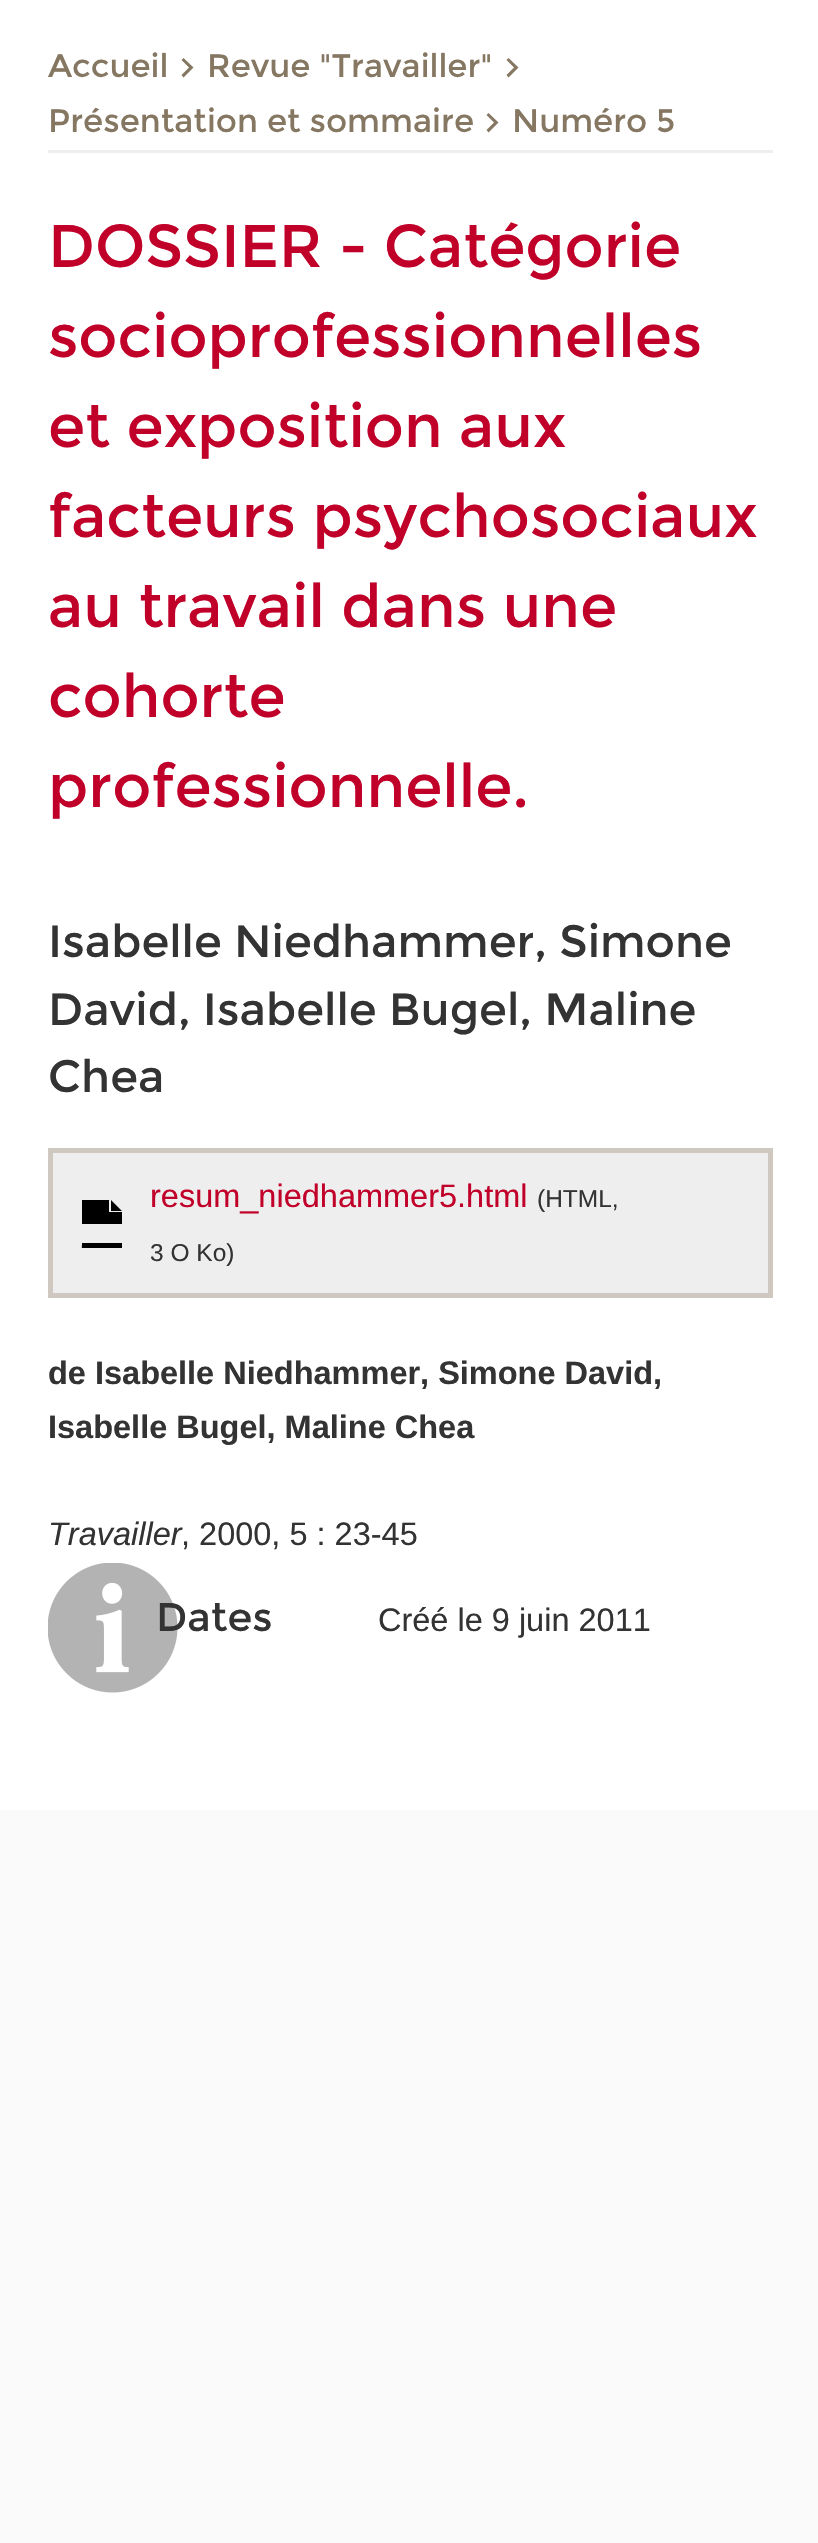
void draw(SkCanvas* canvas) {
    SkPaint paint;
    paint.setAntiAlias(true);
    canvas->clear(0xFFFAFAFA);
    paint.setColor(0xFFFFFFFF);
    canvas->drawRect(SkRect::MakeXYWH(0, 0, 818, 1810), paint);
    paint.setColor(0xFFEEEEEE);
    canvas->drawRect(SkRect::MakeXYWH(48, 150, 725, 3), paint);
    SkFont font1(fontMgr->matchFamilyStyle("Montserrat", SkFontStyle::Normal()), 32.5f);
    font1.setSubpixel(true);
    paint.setColor(0xFF857761);
    canvas->drawString("Accueil", 48, 77, font1, paint);
    canvas->drawPath(SkPathBuilder().moveTo(181.5f, 75).lineTo(189, 67.5f).lineTo(181.5f, 60).lineTo(183.5f, 58).lineTo(193.5f, 67.5f).lineTo(183.5f, 77.5f).close().detach(), paint);
    canvas->drawString("Revue \"Travailler\"", 207, 77, font1, paint);
    canvas->drawPath(SkPathBuilder().moveTo(506.5f, 75).lineTo(514, 67.5f).lineTo(506.5f, 60).lineTo(508.5f, 58).lineTo(518.5f, 67.5f).lineTo(508.5f, 77.5f).close().detach(), paint);
    canvas->drawString("Présentation et sommaire", 48, 132, font1, paint);
    canvas->drawPath(SkPathBuilder().moveTo(486.5f, 130).lineTo(494, 122.5f).lineTo(486.5f, 115).lineTo(488.5f, 113).lineTo(498.5f, 122.5f).lineTo(488.5f, 132.5f).close().detach(), paint);
    canvas->drawString("Numéro 5", 512, 132, font1, paint);
    SkFont font2(fontMgr->matchFamilyStyle("Montserrat", SkFontStyle::Normal()), 60);
    font2.setSubpixel(true);
    paint.setColor(0xFFC1002A);
    canvas->drawString("DOSSIER - Catégorie", 48, 267, font2, paint);
    canvas->drawString("socioprofessionnelles", 48, 357, font2, paint);
    canvas->drawString("et exposition aux", 48, 447, font2, paint);
    canvas->drawString("facteurs psychosociaux", 48, 537, font2, paint);
    canvas->drawString("au travail dans une", 48, 627, font2, paint);
    canvas->drawString("cohorte", 48, 717, font2, paint);
    canvas->drawString("professionnelle.", 48, 807, font2, paint);
    SkFont font3(fontMgr->matchFamilyStyle("Montserrat", SkFontStyle::Normal()), 45);
    font3.setSubpixel(true);
    paint.setColor(0xFF333333);
    canvas->drawString("Isabelle Niedhammer, Simone", 48, 957, font3, paint);
    canvas->drawString("David, Isabelle Bugel, Maline", 48, 1025, font3, paint);
    canvas->drawString("Chea", 48, 1092, font3, paint);
    paint.setStyle(SkPaint::kStroke_Style);
    paint.setStrokeWidth(5);
    paint.setColor(0xFFCFC8C0);
    canvas->drawRect(SkRect::MakeXYWH(50.5f, 1150.5f, 720, 145), paint);
    paint.setStyle(SkPaint::kFill_Style);
    paint.setColor(0xFFEEEEEE);
    canvas->drawRect(SkRect::MakeXYWH(53, 1153, 715, 140), paint);
    canvas->save();
    canvas->clipRect(SkRect::MakeXYWH(78, 1200, 47, 48));
    paint.setColor(0xFF000000);
    canvas->drawPath(SkPathBuilder().moveTo(82, 1200).lineTo(82, 1224).lineTo(122, 1224).lineTo(122, 1212).lineTo(110, 1212).lineTo(109, 1212).lineTo(109, 1200).close().moveTo(111, 1200).lineTo(111, 1211).lineTo(122, 1211).close().moveTo(82, 1243).cubicTo(82, 1251, 80, 1249, 89, 1249).lineTo(115, 1249).cubicTo(123, 1249, 122, 1251, 122, 1243).close().detach(), paint);
    canvas->restore();
    SkFont font4(fontMgr->matchFamilyStyle("Liberation Sans", SkFontStyle::Normal()), 32.5f);
    font4.setSubpixel(true);
    paint.setColor(0xFFC1002A);
    canvas->drawString("resum_niedhammer5.html", 150, 1207, font4, paint);
    SkFont font5(fontMgr->matchFamilyStyle("Liberation Sans", SkFontStyle::Normal()), 24.5f);
    font5.setSubpixel(true);
    paint.setColor(0xFF333333);
    canvas->drawString("(HTML,", 537, 1207, font5, paint);
    canvas->drawString("3 O Ko)", 150, 1261, font5, paint);
    SkFont font6(fontMgr->matchFamilyStyle("Liberation Sans", SkFontStyle::Bold()), 32.5f);
    font6.setSubpixel(true);
    canvas->drawString("de Isabelle Niedhammer, Simone David,", 48, 1384, font6, paint);
    canvas->drawString("Isabelle Bugel, Maline Chea", 48, 1438, font6, paint);
    SkFont font7(fontMgr->matchFamilyStyle("Liberation Sans", SkFontStyle::Italic()), 32.5f);
    font7.setSubpixel(true);
    canvas->drawString("Travailler", 48, 1545, font7, paint);
    canvas->drawString(", 2000, 5 : 23-45", 181, 1545, font4, paint);
    canvas->drawImageRect(SkImages::DeferredFromEncodedData(SkData::MakeFromFileName("img1.png")), SkRect::MakeXYWH(48, 1563, 130, 130), SkSamplingOptions());
    SkFont font8(fontMgr->matchFamilyStyle("Montserrat", SkFontStyle::Normal()), 40);
    font8.setSubpixel(true);
    canvas->drawString("Dates", 156, 1631, font8, paint);
    canvas->drawString("Créé le 9 juin 2011", 378, 1631, font4, paint);
}
